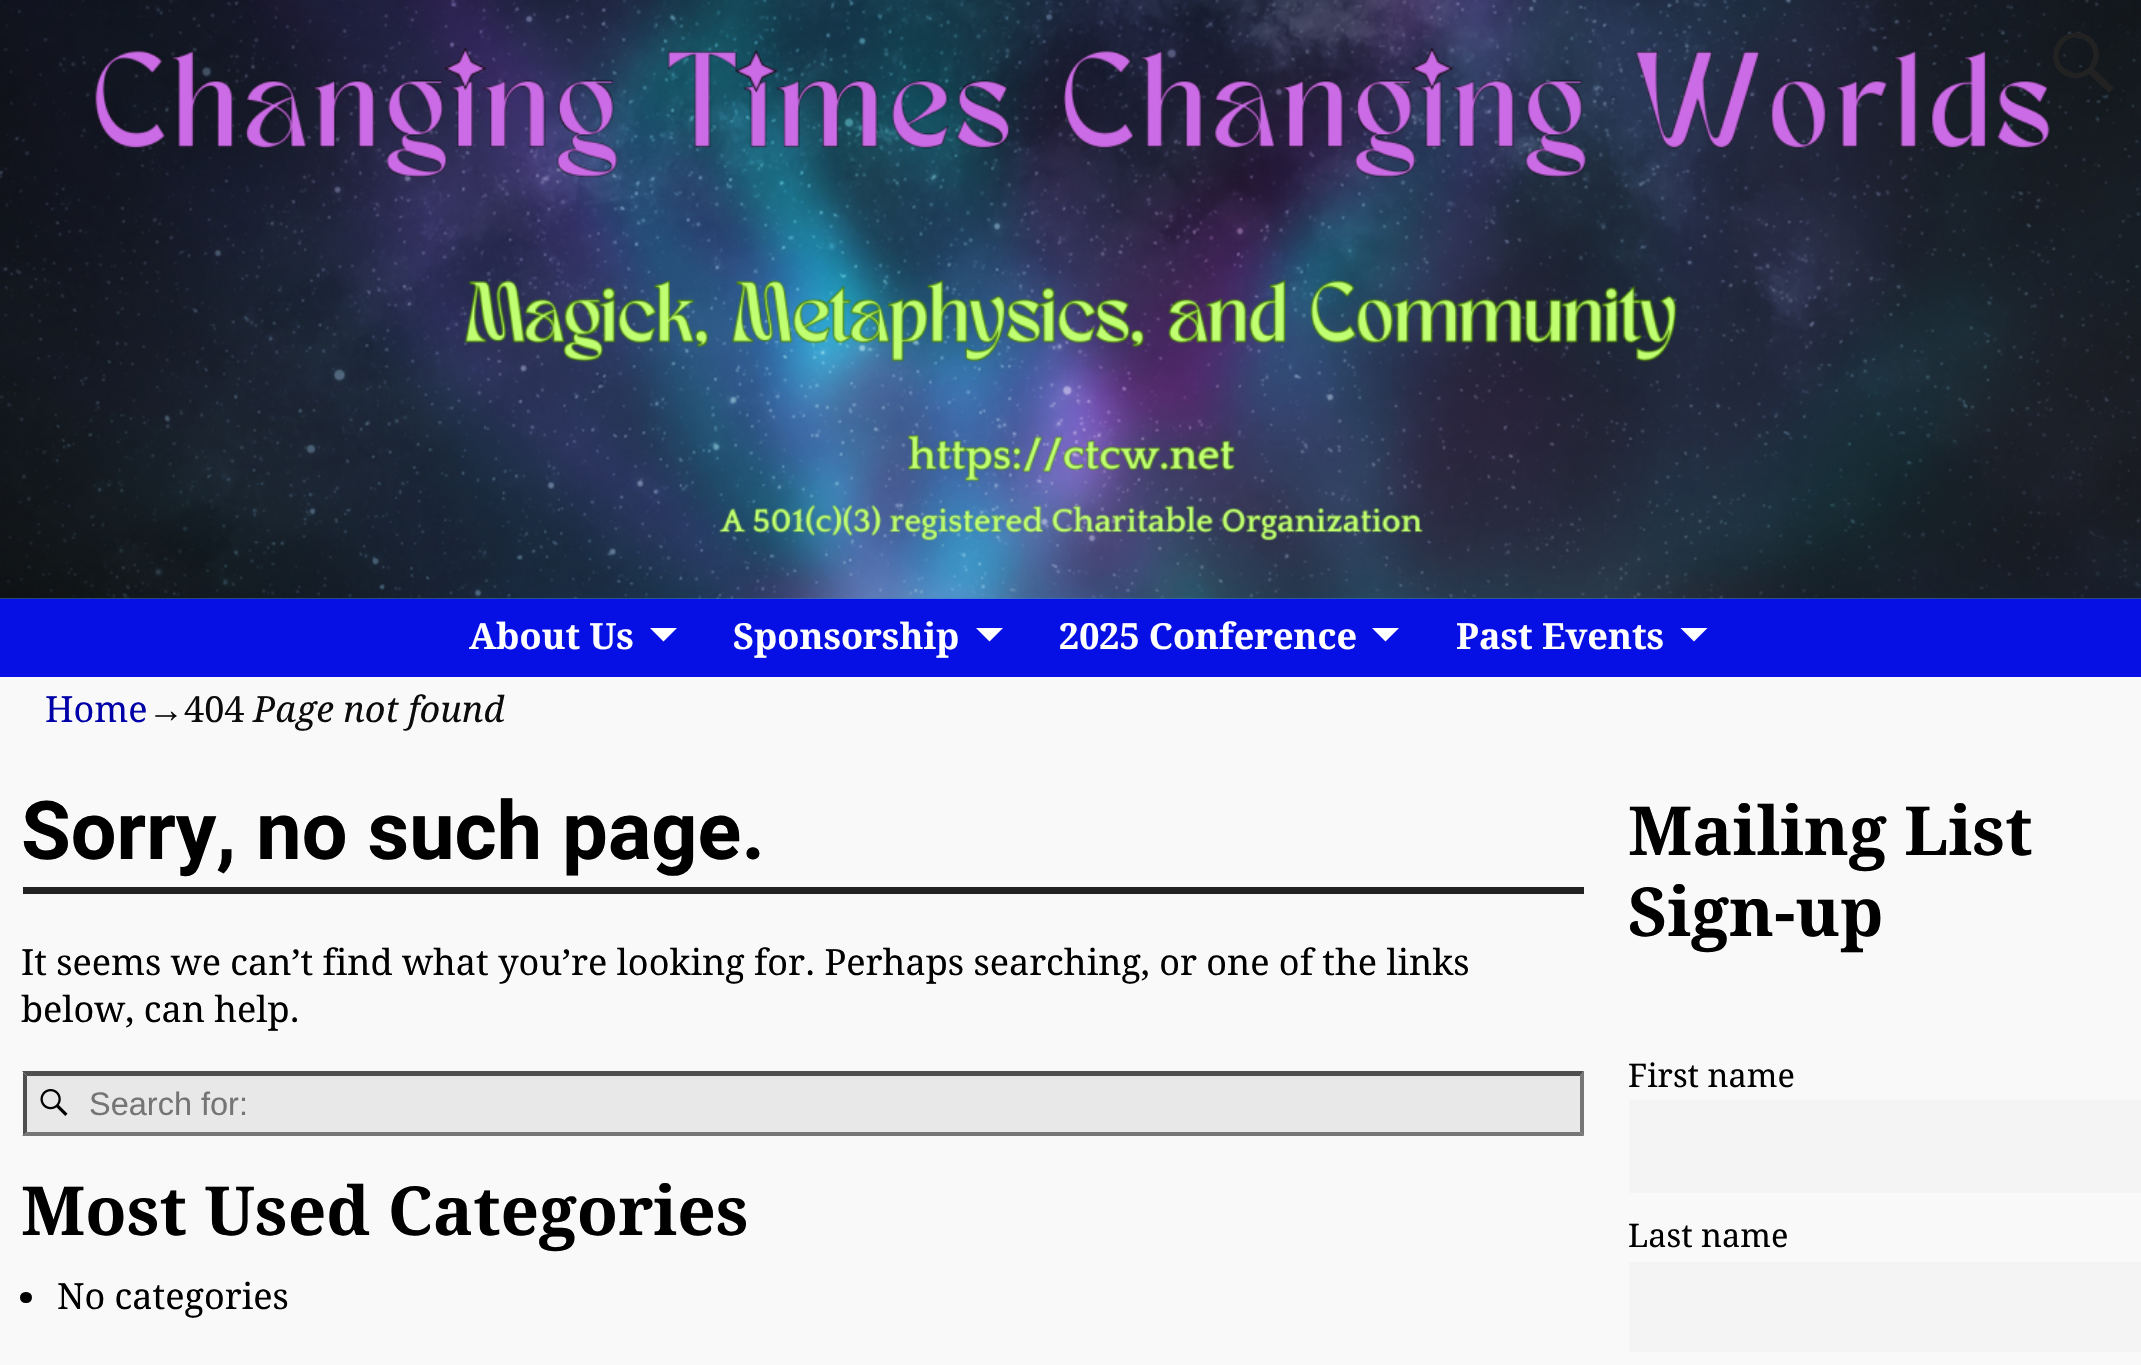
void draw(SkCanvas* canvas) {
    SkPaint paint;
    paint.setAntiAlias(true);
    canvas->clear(0xFFF9F9F9);
    paint.setColor(0xFF337FDD);
    canvas->drawRect(SkRect::MakeXYWH(0, 598, 2141, 1), paint);
    canvas->drawImageRect(SkImages::DeferredFromEncodedData(SkData::MakeFromFileName("img1.png")), SkRect::MakeXYWH(0, 0, 2141, 599), SkSamplingOptions());
    paint.setColor(0xFF222222);
    canvas->drawPath(SkPathBuilder().moveTo(2114, 88).lineTo(2109, 93).lineTo(2089, 74).cubicTo(2078, 82, 2062, 78, 2055, 66).cubicTo(2053, 61, 2053, 56, 2054, 51).cubicTo(2058, 28, 2092, 26, 2098, 49).cubicTo(2100, 56, 2098, 63, 2094, 69).close().moveTo(2061, 47).cubicTo(2049, 67, 2080, 84, 2091, 64).cubicTo(2103, 44, 2072, 26, 2061, 47).close().detach(), paint);
    paint.setColor(0xFF060FE4);
    canvas->drawRect(SkRect::MakeXYWH(0, 599, 2141, 78), paint);
    SkFont font1(fontMgr->matchFamilyStyle("Droid Serif", SkFontStyle::Bold()), 36);
    font1.setSubpixel(true);
    paint.setColor(0xFFFFFFFF);
    canvas->drawString("About Us", 469, 649, font1, paint);
    canvas->drawPath(SkPathBuilder().moveTo(650, 628).lineTo(677, 628).lineTo(663.5f, 641.5f).close().detach(), paint);
    canvas->drawString("Sponsorship", 733, 649, font1, paint);
    canvas->drawPath(SkPathBuilder().moveTo(976, 628).lineTo(1003, 628).lineTo(989.5f, 641.5f).close().detach(), paint);
    canvas->drawString("2025 Conference", 1059, 649, font1, paint);
    canvas->drawPath(SkPathBuilder().moveTo(1372, 628).lineTo(1399, 628).lineTo(1385.5f, 641.5f).close().detach(), paint);
    canvas->drawString("Past Events", 1456, 649, font1, paint);
    canvas->drawPath(SkPathBuilder().moveTo(1680.5f, 628).lineTo(1707.5f, 628).lineTo(1694, 641.5f).close().detach(), paint);
    SkFont font2(fontMgr->matchFamilyStyle("Droid Serif", SkFontStyle::Normal()), 36);
    font2.setSubpixel(true);
    paint.setColor(0xFF0000A8);
    canvas->drawString("Home", 45, 722, font2, paint);
    SkFont font3(fontMgr->matchFamilyStyle("Liberation Serif", SkFontStyle::Normal()), 36);
    font3.setSubpixel(true);
    paint.setColor(0xFF0C0C0C);
    canvas->drawString("→", 148, 722, font3, paint);
    canvas->drawString("404", 184, 722, font2, paint);
    SkFont font4(fontMgr->matchFamilyStyle("Droid Serif", SkFontStyle::Italic()), 36);
    font4.setSubpixel(true);
    canvas->drawString("Page not found", 253, 722, font4, paint);
    paint.setColor(0xFF222222);
    canvas->drawRect(SkRect::MakeXYWH(23, 887, 1561, 7), paint);
    SkFont font5(fontMgr->matchFamilyStyle("Roboto", SkFontStyle::Bold()), 81);
    font5.setSubpixel(true);
    paint.setColor(0xFF000000);
    canvas->drawString("Sorry, no such page.", 21, 859, font5, paint);
    canvas->drawString("It seems we can’t find what you’re looking for. Perhaps searching, or one of the links", 21, 975, font2, paint);
    canvas->drawString("below, can help.", 21, 1022, font2, paint);
    paint.setColor(0xFFE8E8E8);
    canvas->drawRect(SkRect::MakeXYWH(23, 1071, 1561, 65), paint);
    canvas->drawImageRect(SkImages::DeferredFromEncodedData(SkData::MakeFromFileName("img2.png")), SkRect::MakeXYWH(40, 1089, 28, 27), SkSamplingOptions());
    paint.setColor(0xFF4F4F4F);
    canvas->drawPath(SkPathBuilder().moveTo(22, 1071).lineTo(1584, 1071).lineTo(1580, 1076).lineTo(27, 1076).close().detach(), paint);
    paint.setColor(0xFF767676);
    canvas->drawPath(SkPathBuilder().moveTo(1584, 1071).lineTo(1584, 1136).lineTo(1580, 1132).lineTo(1580, 1076).close().detach(), paint);
    canvas->drawPath(SkPathBuilder().moveTo(1584, 1136).lineTo(22, 1136).lineTo(27, 1132).lineTo(1580, 1132).close().detach(), paint);
    canvas->save();
    canvas->clipRect(SkRect::MakeXYWH(23, 1071, 1561, 65));
    paint.setColor(0xFF4F4F4F);
    canvas->drawPath(SkPathBuilder().moveTo(22, 1136).lineTo(22, 1071).lineTo(27, 1076).lineTo(27, 1132).close().detach(), paint);
    canvas->restore();
    SkFont font6(fontMgr->matchFamilyStyle("Liberation Sans", SkFontStyle::Normal()), 32.5f);
    font6.setSubpixel(true);
    paint.setColor(0xFF757575);
    canvas->drawString("Search for:", 89, 1115, font6, paint);
    SkFont font7(fontMgr->matchFamilyStyle("Droid Serif", SkFontStyle::Bold()), 67.5f);
    font7.setSubpixel(true);
    paint.setColor(0xFF000000);
    canvas->drawString("Most Used Categories", 21, 1235, font7, paint);
    canvas->drawRoundRect(SkRect::MakeXYWH(20, 1292, 12, 11), 5.5f, 5.5f, paint);
    canvas->drawString("No categories", 57, 1309, font2, paint);
    canvas->drawString("Mailing List", 1628, 855, font7, paint);
    canvas->drawString("Sign-up", 1628, 936, font7, paint);
    SkFont font8(fontMgr->matchFamilyStyle("Droid Serif", SkFontStyle::Normal()), 32.5f);
    font8.setSubpixel(true);
    canvas->drawString("First name", 1628, 1087, font8, paint);
    paint.setColor(0xFFF4F4F4);
    canvas->drawRect(SkRect::MakeXYWH(1629, 1100, 512, 93), paint);
    paint.setColor(0xFF000000);
    canvas->drawString("Last name", 1628, 1247, font8, paint);
    paint.setColor(0xFFF4F4F4);
    canvas->drawRect(SkRect::MakeXYWH(1629, 1262, 512, 90), paint);
}
